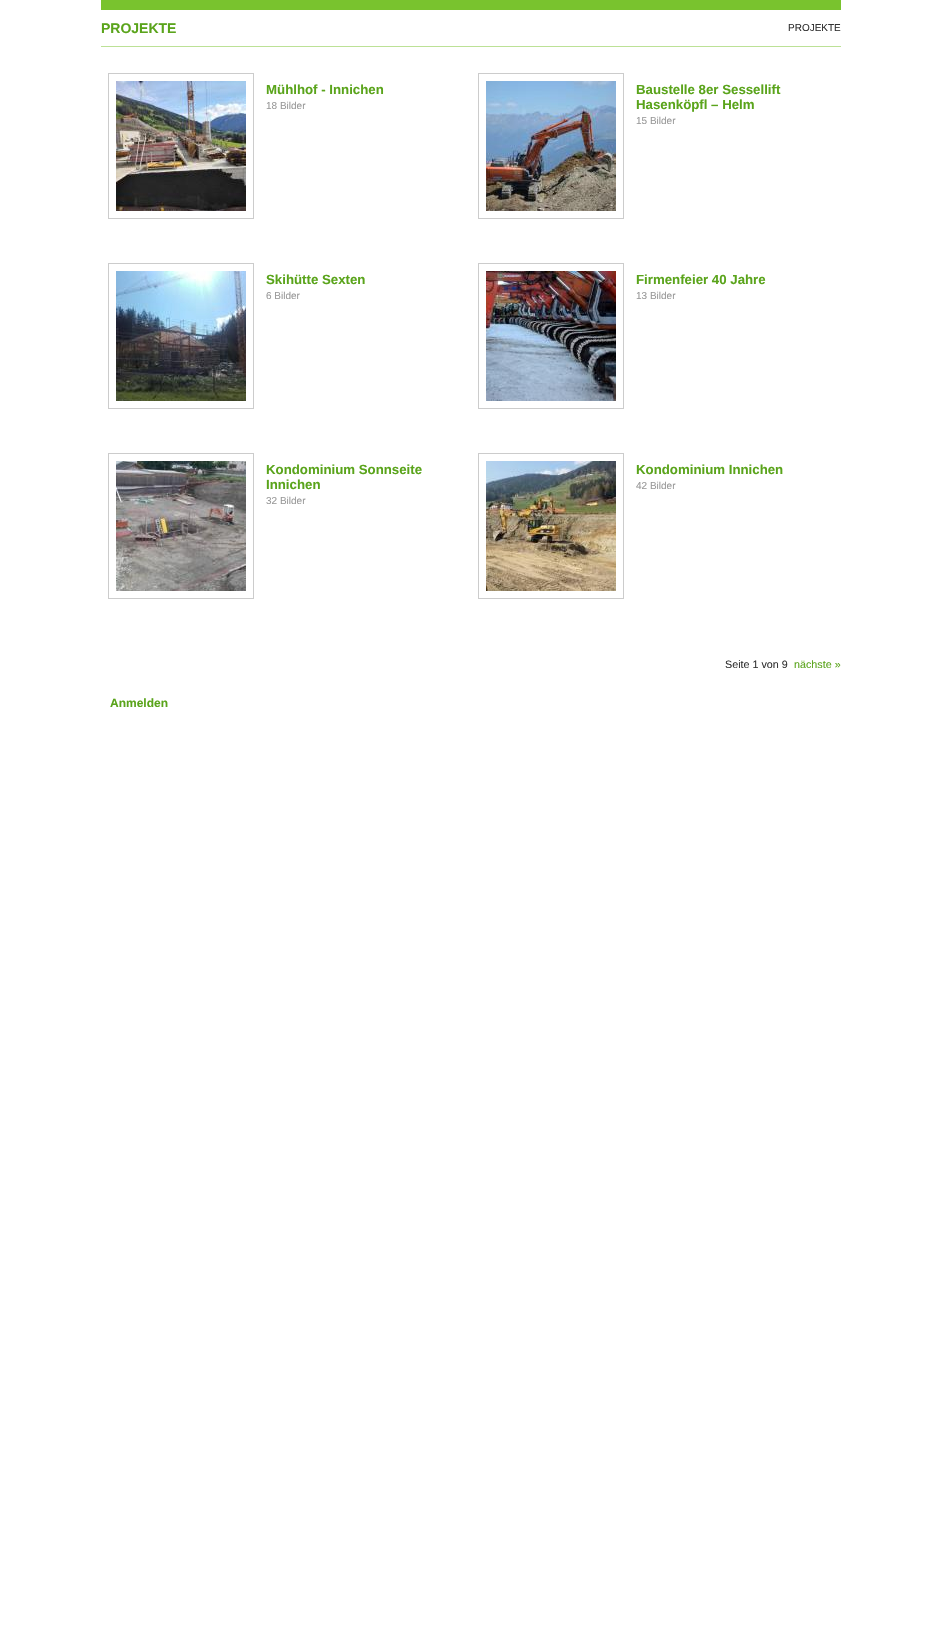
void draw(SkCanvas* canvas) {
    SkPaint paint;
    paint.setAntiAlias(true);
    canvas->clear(0xFFFFFFFF);
    paint.setColor(0xFF79C32E);
    canvas->drawRect(SkRect::MakeXYWH(101, 0, 740, 10), paint);
    paint.setColor(0xFFBCE196);
    canvas->drawRect(SkRect::MakeXYWH(101, 46, 740, 1), paint);
    SkFont font1(fontMgr->matchFamilyStyle("Liberation Sans", SkFontStyle::Bold()), 14);
    font1.setSubpixel(true);
    paint.setColor(0xFF5AA41B);
    canvas->drawString("PROJEKTE", 101, 33, font1, paint);
    SkFont font2(fontMgr->matchFamilyStyle("Liberation Sans", SkFontStyle::Normal()), 10);
    font2.setSubpixel(true);
    paint.setColor(0xFF333333);
    canvas->drawString("PROJEKTE", 788, 31, font2, paint);
    paint.setStyle(SkPaint::kStroke_Style);
    paint.setStrokeWidth(1);
    paint.setColor(0xFFCCCCCC);
    canvas->drawRect(SkRect::MakeXYWH(108.5f, 73.5f, 145, 145), paint);
    canvas->drawImageRect(SkImages::DeferredFromEncodedData(SkData::MakeFromFileName("img1.png")), SkRect::MakeXYWH(116, 81, 130, 130), SkSamplingOptions());
    SkFont font3(fontMgr->matchFamilyStyle("Liberation Sans", SkFontStyle::Bold()), 13.25f);
    font3.setSubpixel(true);
    paint.setStyle(SkPaint::kFill_Style);
    paint.setColor(0xFF5AA41B);
    canvas->drawString("Mühlhof - Innichen", 266, 94, font3, paint);
    paint.setColor(0xFF999999);
    canvas->drawString("18 Bilder", 266, 109, font2, paint);
    paint.setStyle(SkPaint::kStroke_Style);
    paint.setColor(0xFFCCCCCC);
    canvas->drawRect(SkRect::MakeXYWH(478.5f, 73.5f, 145, 145), paint);
    canvas->drawImageRect(SkImages::DeferredFromEncodedData(SkData::MakeFromFileName("img2.png")), SkRect::MakeXYWH(486, 81, 130, 130), SkSamplingOptions());
    paint.setStyle(SkPaint::kFill_Style);
    paint.setColor(0xFF5AA41B);
    canvas->drawString("Baustelle 8er Sessellift", 636, 94, font3, paint);
    canvas->drawString("Hasenköpfl – Helm", 636, 109, font3, paint);
    paint.setColor(0xFF999999);
    canvas->drawString("15 Bilder", 636, 124, font2, paint);
    paint.setStyle(SkPaint::kStroke_Style);
    paint.setColor(0xFFCCCCCC);
    canvas->drawRect(SkRect::MakeXYWH(108.5f, 263.5f, 145, 145), paint);
    canvas->drawImageRect(SkImages::DeferredFromEncodedData(SkData::MakeFromFileName("img3.png")), SkRect::MakeXYWH(116, 271, 130, 130), SkSamplingOptions());
    paint.setStyle(SkPaint::kFill_Style);
    paint.setColor(0xFF5AA41B);
    canvas->drawString("Skihütte Sexten", 266, 284, font3, paint);
    paint.setColor(0xFF999999);
    canvas->drawString("6 Bilder", 266, 299, font2, paint);
    paint.setStyle(SkPaint::kStroke_Style);
    paint.setColor(0xFFCCCCCC);
    canvas->drawRect(SkRect::MakeXYWH(478.5f, 263.5f, 145, 145), paint);
    canvas->drawImageRect(SkImages::DeferredFromEncodedData(SkData::MakeFromFileName("img4.png")), SkRect::MakeXYWH(486, 271, 130, 130), SkSamplingOptions());
    paint.setStyle(SkPaint::kFill_Style);
    paint.setColor(0xFF5AA41B);
    canvas->drawString("Firmenfeier 40 Jahre", 636, 284, font3, paint);
    paint.setColor(0xFF999999);
    canvas->drawString("13 Bilder", 636, 299, font2, paint);
    paint.setStyle(SkPaint::kStroke_Style);
    paint.setColor(0xFFCCCCCC);
    canvas->drawRect(SkRect::MakeXYWH(108.5f, 453.5f, 145, 145), paint);
    canvas->drawImageRect(SkImages::DeferredFromEncodedData(SkData::MakeFromFileName("img5.png")), SkRect::MakeXYWH(116, 461, 130, 130), SkSamplingOptions());
    paint.setStyle(SkPaint::kFill_Style);
    paint.setColor(0xFF5AA41B);
    canvas->drawString("Kondominium Sonnseite", 266, 474, font3, paint);
    canvas->drawString("Innichen", 266, 489, font3, paint);
    paint.setColor(0xFF999999);
    canvas->drawString("32 Bilder", 266, 504, font2, paint);
    paint.setStyle(SkPaint::kStroke_Style);
    paint.setColor(0xFFCCCCCC);
    canvas->drawRect(SkRect::MakeXYWH(478.5f, 453.5f, 145, 145), paint);
    canvas->drawImageRect(SkImages::DeferredFromEncodedData(SkData::MakeFromFileName("img6.png")), SkRect::MakeXYWH(486, 461, 130, 130), SkSamplingOptions());
    paint.setStyle(SkPaint::kFill_Style);
    paint.setColor(0xFF5AA41B);
    canvas->drawString("Kondominium Innichen", 636, 474, font3, paint);
    paint.setColor(0xFF999999);
    canvas->drawString("42 Bilder", 636, 489, font2, paint);
    SkFont font4(fontMgr->matchFamilyStyle("Liberation Sans", SkFontStyle::Normal()), 10.75f);
    font4.setSubpixel(true);
    paint.setColor(0xFF333333);
    canvas->drawString("Seite 1 von 9", 725, 668, font4, paint);
    paint.setColor(0xFF5AA41B);
    canvas->drawString("nächste »", 794, 668, font4, paint);
    SkFont font5(fontMgr->matchFamilyStyle("Liberation Sans", SkFontStyle::Bold()), 12);
    font5.setSubpixel(true);
    canvas->drawString("Anmelden", 110, 707, font5, paint);
}
